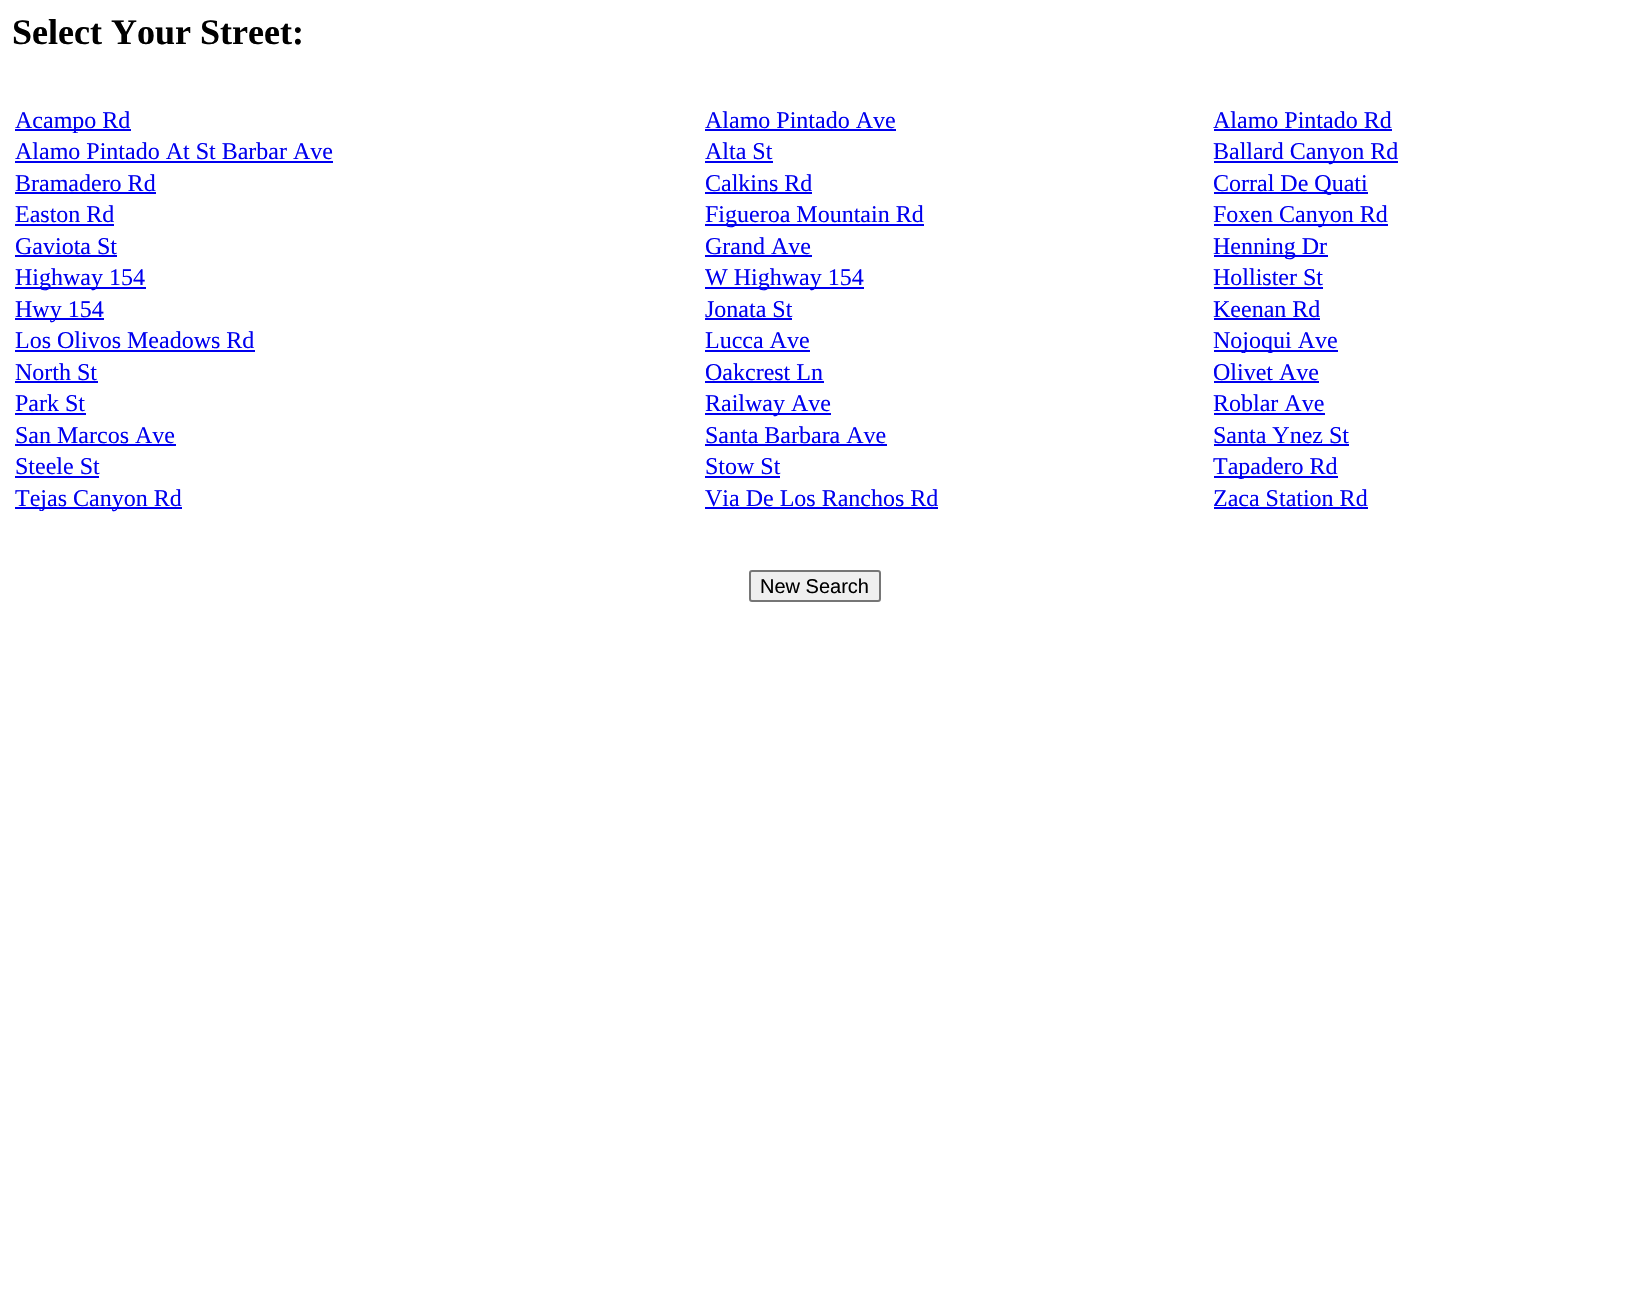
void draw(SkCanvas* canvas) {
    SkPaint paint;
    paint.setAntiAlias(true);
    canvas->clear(0xFFFFFFFF);
    SkFont font1(fontMgr->matchFamilyStyle("Liberation Serif", SkFontStyle::Bold()), 36);
    font1.setSubpixel(true);
    paint.setColor(0xFF000000);
    canvas->drawString("Select Your Street:", 12, 44, font1, paint);
    paint.setColor(0xFF0000EE);
    canvas->drawRect(SkRect::MakeXYWH(15, 129, 116, 2), paint);
    SkFont font2(fontMgr->matchFamilyStyle("Liberation Serif", SkFontStyle::Normal()), 24);
    font2.setSubpixel(true);
    canvas->drawString("Acampo Rd", 15, 128, font2, paint);
    canvas->drawString("Alamo Pintado Ave", 705, 128, font2, paint);
    canvas->drawRect(SkRect::MakeXYWH(705, 129, 191, 2), paint);
    canvas->drawString("Alamo Pintado Rd", 1213, 128, font2, paint);
    canvas->drawRect(SkRect::MakeXYWH(1214, 129, 178, 2), paint);
    canvas->drawString("Alamo Pintado At St Barbar Ave", 15, 159, font2, paint);
    canvas->drawRect(SkRect::MakeXYWH(15, 161, 318, 2), paint);
    canvas->drawString("Alta St", 705, 159, font2, paint);
    canvas->drawRect(SkRect::MakeXYWH(705, 161, 68, 2), paint);
    canvas->drawRect(SkRect::MakeXYWH(1214, 161, 184, 2), paint);
    canvas->drawString("Ballard Canyon Rd", 1213, 159, font2, paint);
    canvas->drawString("Bramadero Rd", 15, 191, font2, paint);
    canvas->drawRect(SkRect::MakeXYWH(15, 192, 141, 2), paint);
    canvas->drawString("Calkins Rd", 705, 191, font2, paint);
    canvas->drawRect(SkRect::MakeXYWH(705, 192, 107, 2), paint);
    canvas->drawRect(SkRect::MakeXYWH(1214, 192, 154, 2), paint);
    canvas->drawString("Corral De Quati", 1213, 191, font2, paint);
    canvas->drawString("Easton Rd", 15, 222, font2, paint);
    canvas->drawRect(SkRect::MakeXYWH(15, 224, 99, 2), paint);
    canvas->drawRect(SkRect::MakeXYWH(705, 224, 219, 2), paint);
    canvas->drawString("Figueroa Mountain Rd", 705, 222, font2, paint);
    canvas->drawRect(SkRect::MakeXYWH(1214, 224, 174, 2), paint);
    canvas->drawString("Foxen Canyon Rd", 1213, 222, font2, paint);
    canvas->drawString("Gaviota St", 15, 254, font2, paint);
    canvas->drawRect(SkRect::MakeXYWH(15, 255, 102, 2), paint);
    canvas->drawString("Grand Ave", 705, 254, font2, paint);
    canvas->drawRect(SkRect::MakeXYWH(705, 255, 107, 2), paint);
    canvas->drawRect(SkRect::MakeXYWH(1214, 255, 114, 2), paint);
    canvas->drawString("Henning Dr", 1213, 254, font2, paint);
    canvas->drawRect(SkRect::MakeXYWH(15, 287, 131, 2), paint);
    canvas->drawString("Highway 154", 15, 285, font2, paint);
    canvas->drawRect(SkRect::MakeXYWH(705, 287, 159, 2), paint);
    canvas->drawString("W Highway 154", 705, 285, font2, paint);
    canvas->drawString("Hollister St", 1213, 285, font2, paint);
    canvas->drawRect(SkRect::MakeXYWH(1214, 287, 109, 2), paint);
    canvas->drawRect(SkRect::MakeXYWH(15, 318, 89, 2), paint);
    canvas->drawString("Hwy 154", 15, 317, font2, paint);
    canvas->drawString("Jonata St", 705, 317, font2, paint);
    canvas->drawRect(SkRect::MakeXYWH(705, 318, 87, 2), paint);
    canvas->drawString("Keenan Rd", 1213, 317, font2, paint);
    canvas->drawRect(SkRect::MakeXYWH(1214, 318, 106, 2), paint);
    canvas->drawString("Los Olivos Meadows Rd", 15, 348, font2, paint);
    canvas->drawRect(SkRect::MakeXYWH(15, 350, 240, 2), paint);
    canvas->drawString("Lucca Ave", 705, 348, font2, paint);
    canvas->drawRect(SkRect::MakeXYWH(705, 350, 105, 2), paint);
    canvas->drawRect(SkRect::MakeXYWH(1214, 350, 124, 2), paint);
    canvas->drawString("Nojoqui Ave", 1213, 348, font2, paint);
    canvas->drawString("North St", 15, 380, font2, paint);
    canvas->drawRect(SkRect::MakeXYWH(15, 381, 83, 2), paint);
    canvas->drawString("Oakcrest Ln", 705, 380, font2, paint);
    canvas->drawRect(SkRect::MakeXYWH(705, 381, 119, 2), paint);
    canvas->drawString("Olivet Ave", 1213, 380, font2, paint);
    canvas->drawRect(SkRect::MakeXYWH(1214, 381, 105, 2), paint);
    canvas->drawString("Park St", 15, 411, font2, paint);
    canvas->drawRect(SkRect::MakeXYWH(15, 413, 71, 2), paint);
    canvas->drawRect(SkRect::MakeXYWH(705, 413, 126, 2), paint);
    canvas->drawString("Railway Ave", 705, 411, font2, paint);
    canvas->drawString("Roblar Ave", 1213, 411, font2, paint);
    canvas->drawRect(SkRect::MakeXYWH(1214, 413, 111, 2), paint);
    canvas->drawString("San Marcos Ave", 15, 443, font2, paint);
    canvas->drawRect(SkRect::MakeXYWH(15, 444, 161, 2), paint);
    canvas->drawString("Santa Barbara Ave", 705, 443, font2, paint);
    canvas->drawRect(SkRect::MakeXYWH(705, 444, 182, 2), paint);
    canvas->drawString("Santa Ynez St", 1213, 443, font2, paint);
    canvas->drawRect(SkRect::MakeXYWH(1214, 444, 135, 2), paint);
    canvas->drawString("Steele St", 15, 474, font2, paint);
    canvas->drawRect(SkRect::MakeXYWH(15, 476, 84, 2), paint);
    canvas->drawString("Stow St", 705, 474, font2, paint);
    canvas->drawRect(SkRect::MakeXYWH(705, 476, 75, 2), paint);
    canvas->drawRect(SkRect::MakeXYWH(1214, 476, 124, 2), paint);
    canvas->drawString("Tapadero Rd", 1213, 474, font2, paint);
    canvas->drawRect(SkRect::MakeXYWH(15, 507, 167, 2), paint);
    canvas->drawString("Tejas Canyon Rd", 15, 506, font2, paint);
    canvas->drawString("Via De Los Ranchos Rd", 705, 506, font2, paint);
    canvas->drawRect(SkRect::MakeXYWH(705, 507, 233, 2), paint);
    canvas->drawString("Zaca Station Rd", 1213, 506, font2, paint);
    canvas->drawRect(SkRect::MakeXYWH(1214, 507, 154, 2), paint);
    paint.setColor(0xFFEFEFEF);
    canvas->drawRoundRect(SkRect::MakeXYWH(750, 571, 130, 30), 2, 2, paint);
    paint.setStyle(SkPaint::kStroke_Style);
    paint.setStrokeWidth(2);
    paint.setColor(0xFF767676);
    canvas->drawRoundRect(SkRect::MakeXYWH(750, 571, 130, 30), 2, 2, paint);
    SkFont font3(fontMgr->matchFamilyStyle("Liberation Sans", SkFontStyle::Normal()), 20);
    font3.setSubpixel(true);
    paint.setStyle(SkPaint::kFill_Style);
    paint.setColor(0xFF000000);
    canvas->drawString("New Search", 760, 593, font3, paint);
}
